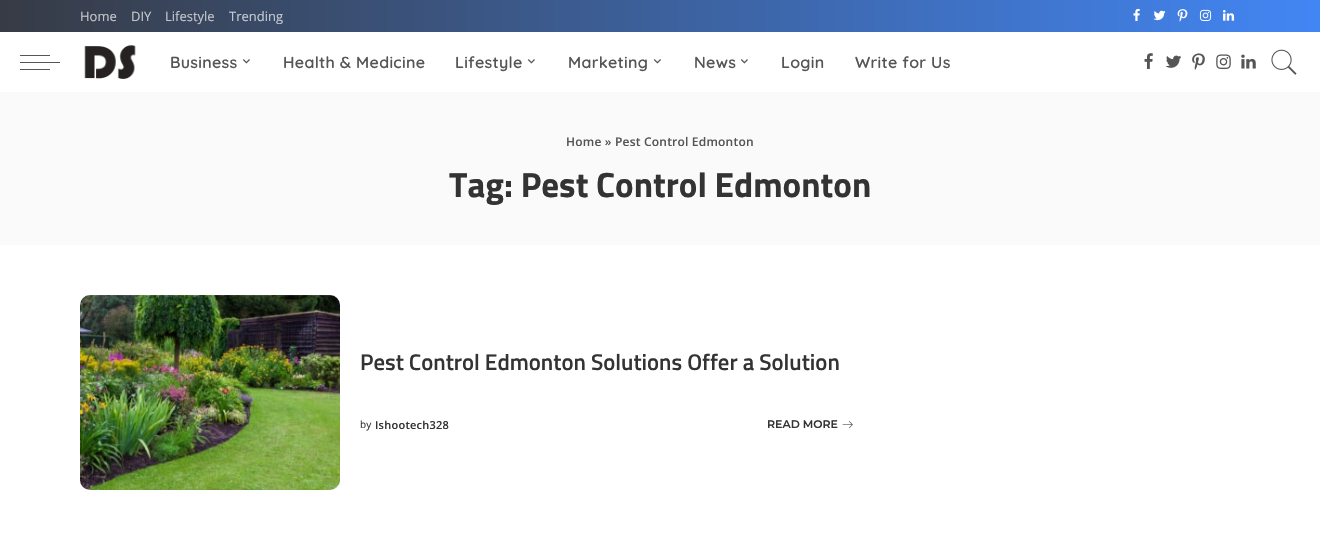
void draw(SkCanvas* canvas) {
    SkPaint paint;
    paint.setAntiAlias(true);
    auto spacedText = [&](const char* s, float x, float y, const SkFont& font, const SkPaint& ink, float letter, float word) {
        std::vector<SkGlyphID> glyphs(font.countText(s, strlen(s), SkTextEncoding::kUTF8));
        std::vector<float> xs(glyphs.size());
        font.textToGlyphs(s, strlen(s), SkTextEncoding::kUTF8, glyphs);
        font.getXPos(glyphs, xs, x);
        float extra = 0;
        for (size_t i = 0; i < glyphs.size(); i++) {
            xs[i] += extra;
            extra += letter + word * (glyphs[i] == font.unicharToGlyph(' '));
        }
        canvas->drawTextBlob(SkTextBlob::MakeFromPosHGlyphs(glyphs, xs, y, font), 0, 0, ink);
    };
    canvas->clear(0xFFFFFFFF);
    {
        const SkColor colors[] = {0xFF373B44, 0xFF4286F4};
        const float stops[] = {0, 1};
        const SkPoint ends[] = {{0, 16}, {1320, 16}};
        paint.setShader(SkGradientShader::MakeLinear(ends, colors, stops, 2, SkTileMode::kClamp));
        paint.setAlpha(255);
    }
    canvas->drawRect(SkRect::MakeXYWH(0, 0, 1320, 32), paint);
    SkFont font1(fontMgr->matchFamilyStyle("Open Sans", SkFontStyle::Normal()), 13);
    font1.setSubpixel(true);
    paint.setShader(nullptr);
    paint.setColor(0xFFC3C6CB);
    canvas->drawString("Home", 80, 21, font1, paint);
    canvas->drawString("DIY", 131, 21, font1, paint);
    canvas->drawString("Lifestyle", 165, 21, font1, paint);
    paint.setColor(0xFFC4C9D1);
    canvas->drawString("Trending", 229, 21, font1, paint);
    canvas->drawImageRect(SkImages::DeferredFromEncodedData(SkData::MakeFromFileName("img1.png")), SkRect::MakeXYWH(1133, 8, 7, 13), SkSamplingOptions());
    canvas->drawImageRect(SkImages::DeferredFromEncodedData(SkData::MakeFromFileName("img2.png")), SkRect::MakeXYWH(1153, 10, 13, 11), SkSamplingOptions());
    canvas->drawImageRect(SkImages::DeferredFromEncodedData(SkData::MakeFromFileName("img3.png")), SkRect::MakeXYWH(1177, 9, 11, 13), SkSamplingOptions());
    canvas->drawImageRect(SkImages::DeferredFromEncodedData(SkData::MakeFromFileName("img4.png")), SkRect::MakeXYWH(1199, 9, 13, 12), SkSamplingOptions());
    canvas->drawImageRect(SkImages::DeferredFromEncodedData(SkData::MakeFromFileName("img5.png")), SkRect::MakeXYWH(1223, 10, 12, 11), SkSamplingOptions());
    paint.setColor(0xFF555555);
    canvas->drawRect(SkRect::MakeXYWH(20, 62, 40, 1), paint);
    canvas->drawRect(SkRect::MakeXYWH(20, 55, 30, 1), paint);
    canvas->drawRect(SkRect::MakeXYWH(20, 69, 30, 1), paint);
    canvas->drawImageRect(SkImages::DeferredFromEncodedData(SkData::MakeFromFileName("img6.png")), SkRect::MakeXYWH(84, 45, 52, 34), SkSamplingOptions());
    SkFont font2(fontMgr->matchFamilyStyle("Quicksand", SkFontStyle(600, SkFontStyle::kNormal_Width, SkFontStyle::kUpright_Slant)), 16);
    font2.setSubpixel(true);
    spacedText("Business", 170, 68, font2, paint, 0.3f, 0);
    canvas->drawImageRect(SkImages::DeferredFromEncodedData(SkData::MakeFromFileName("img7.png")), SkRect::MakeXYWH(242, 59, 8, 5), SkSamplingOptions());
    spacedText("Health & Medicine", 283, 68, font2, paint, 0.3f, 0);
    spacedText("Lifestyle", 455, 68, font2, paint, 0.3f, 0);
    canvas->drawImageRect(SkImages::DeferredFromEncodedData(SkData::MakeFromFileName("img7.png")), SkRect::MakeXYWH(527, 59, 8, 5), SkSamplingOptions());
    spacedText("Marketing", 568, 68, font2, paint, 0.3f, 0);
    canvas->drawImageRect(SkImages::DeferredFromEncodedData(SkData::MakeFromFileName("img7.png")), SkRect::MakeXYWH(653, 59, 8, 5), SkSamplingOptions());
    spacedText("News", 694, 68, font2, paint, 0.3f, 0);
    canvas->drawImageRect(SkImages::DeferredFromEncodedData(SkData::MakeFromFileName("img7.png")), SkRect::MakeXYWH(740, 59, 8, 5), SkSamplingOptions());
    spacedText("Login", 781, 68, font2, paint, 0.3f, 0);
    spacedText("Write for Us", 855, 68, font2, paint, 0.3f, 0);
    canvas->drawImageRect(SkImages::DeferredFromEncodedData(SkData::MakeFromFileName("img8.png")), SkRect::MakeXYWH(1144, 53, 9, 16), SkSamplingOptions());
    canvas->drawImageRect(SkImages::DeferredFromEncodedData(SkData::MakeFromFileName("img9.png")), SkRect::MakeXYWH(1166, 55, 15, 13), SkSamplingOptions());
    canvas->drawImageRect(SkImages::DeferredFromEncodedData(SkData::MakeFromFileName("img10.png")), SkRect::MakeXYWH(1192, 53, 13, 17), SkSamplingOptions());
    canvas->drawImageRect(SkImages::DeferredFromEncodedData(SkData::MakeFromFileName("img11.png")), SkRect::MakeXYWH(1216, 54, 15, 15), SkSamplingOptions());
    canvas->drawImageRect(SkImages::DeferredFromEncodedData(SkData::MakeFromFileName("img12.png")), SkRect::MakeXYWH(1241, 54, 15, 15), SkSamplingOptions());
    canvas->drawImageRect(SkImages::DeferredFromEncodedData(SkData::MakeFromFileName("img13.png")), SkRect::MakeXYWH(1271, 49, 26, 26), SkSamplingOptions());
    paint.setColor(0xFFFAFAFA);
    canvas->drawRect(SkRect::MakeXYWH(0, 92, 1320, 153), paint);
    SkFont font3(fontMgr->matchFamilyStyle("Open Sans", SkFontStyle(600, SkFontStyle::kNormal_Width, SkFontStyle::kUpright_Slant)), 12);
    font3.setSubpixel(true);
    paint.setColor(0xFF555555);
    spacedText("Home » Pest Control Edmonton", 566, 146, font3, paint, 0.2f, 0);
    SkFont font4(fontMgr->matchFamilyStyle("Titillium Web", SkFontStyle::Bold()), 35);
    font4.setSubpixel(true);
    paint.setColor(0xFF333333);
    canvas->drawString("Tag: Pest Control Edmonton", 449, 197, font4, paint);
    canvas->drawImageRect(SkImages::DeferredFromEncodedData(SkData::MakeFromFileName("img14.png")), SkRect::MakeXYWH(80, 295, 260, 195), SkSamplingOptions());
    SkFont font5(fontMgr->matchFamilyStyle("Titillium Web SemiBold", SkFontStyle(600, SkFontStyle::kNormal_Width, SkFontStyle::kUpright_Slant)), 22.75f);
    font5.setSubpixel(true);
    canvas->drawString("Pest Control Edmonton Solutions Offer a Solution", 360, 370, font5, paint);
    SkFont font6(fontMgr->matchFamilyStyle("Open Sans", SkFontStyle::Normal()), 10);
    font6.setSubpixel(true);
    spacedText("by", 360, 428, font6, paint, 0.25f, 0);
    SkFont font7(fontMgr->matchFamilyStyle("Open Sans", SkFontStyle(600, SkFontStyle::kNormal_Width, SkFontStyle::kUpright_Slant)), 11);
    font7.setSubpixel(true);
    spacedText("Ishootech328", 375, 429, font7, paint, 0.25f, 0);
    SkFont font8(fontMgr->matchFamilyStyle("Montserrat", SkFontStyle(600, SkFontStyle::kNormal_Width, SkFontStyle::kUpright_Slant)), 11);
    font8.setSubpixel(true);
    canvas->drawString("READ MORE", 767, 428, font8, paint);
    canvas->drawImageRect(SkImages::DeferredFromEncodedData(SkData::MakeFromFileName("img15.png")), SkRect::MakeXYWH(842, 421, 11, 8), SkSamplingOptions());
}
